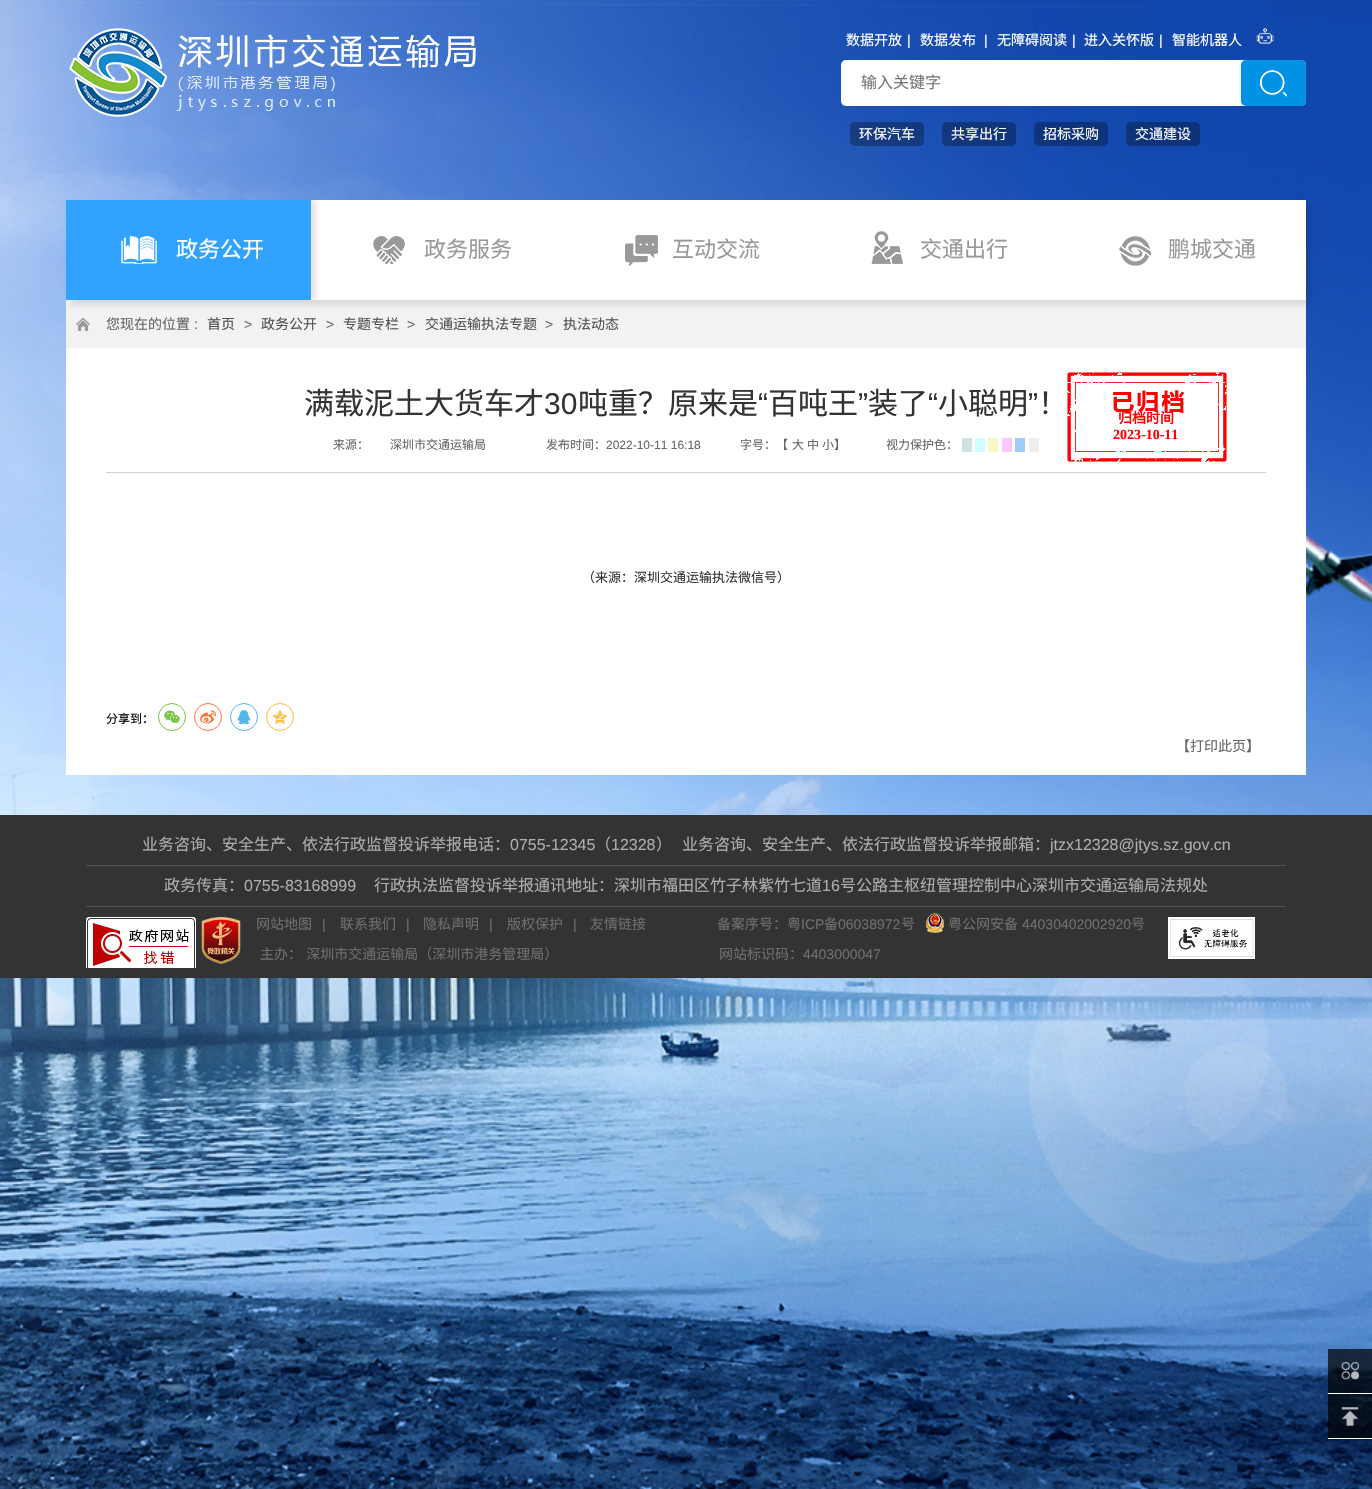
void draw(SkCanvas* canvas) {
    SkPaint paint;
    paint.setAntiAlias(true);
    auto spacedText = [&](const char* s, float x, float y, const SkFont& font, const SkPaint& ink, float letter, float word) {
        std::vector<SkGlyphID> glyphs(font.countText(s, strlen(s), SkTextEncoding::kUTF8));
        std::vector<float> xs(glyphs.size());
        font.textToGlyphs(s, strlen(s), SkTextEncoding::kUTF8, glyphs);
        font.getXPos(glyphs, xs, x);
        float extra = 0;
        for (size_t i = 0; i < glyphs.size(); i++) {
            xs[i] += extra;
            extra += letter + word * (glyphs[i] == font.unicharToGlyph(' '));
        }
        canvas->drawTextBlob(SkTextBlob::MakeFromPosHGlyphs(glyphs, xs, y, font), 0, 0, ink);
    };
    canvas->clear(0xFFFFFFFF);
    canvas->drawImageRect(SkImages::DeferredFromEncodedData(SkData::MakeFromFileName("img1.png")), SkRect::MakeXYWH(0, 0, 1372, 1489), SkSamplingOptions());
    canvas->drawImageRect(SkImages::DeferredFromEncodedData(SkData::MakeFromFileName("img2.png")), SkRect::MakeXYWH(69, 28, 407, 89), SkSamplingOptions());
    SkFont font1(fontMgr->matchFamilyStyle("Noto Sans CJK SC", SkFontStyle::Normal()), 14);
    font1.setSubpixel(true);
    paint.setColor(0xFFFFFFFF);
    canvas->drawString("数据开放", 846, 45, font1, paint);
    SkFont font2(fontMgr->matchFamilyStyle("Liberation Sans", SkFontStyle::Normal()), 14);
    font2.setSubpixel(true);
    canvas->drawString("|", 907, 45, font2, paint);
    canvas->drawString("数据发布", 920, 45, font1, paint);
    canvas->drawString("|", 984, 45, font2, paint);
    canvas->drawString("无障碍阅读", 997, 45, font1, paint);
    canvas->drawString("|", 1072, 45, font2, paint);
    canvas->drawString("进入关怀版", 1084, 45, font1, paint);
    canvas->drawString("|", 1159, 45, font2, paint);
    canvas->drawString("智能机器人", 1172, 45, font1, paint);
    canvas->drawImageRect(SkImages::DeferredFromEncodedData(SkData::MakeFromFileName("img3.png")), SkRect::MakeXYWH(1256, 28, 18, 16), SkSamplingOptions());
    canvas->drawRoundRect(SkRect::MakeXYWH(841, 60, 465, 46), 5, 5, paint);
    SkFont font3(fontMgr->matchFamilyStyle("Noto Sans CJK SC", SkFontStyle::Normal()), 16);
    font3.setSubpixel(true);
    paint.setColor(0xFF757575);
    canvas->drawString("输入关键字", 861, 88, font3, paint);
    paint.setColor(0xFF0092E5);
    canvas->drawRoundRect(SkRect::MakeXYWH(1241, 60, 65, 46), 5, 5, paint);
    canvas->drawImageRect(SkImages::DeferredFromEncodedData(SkData::MakeFromFileName("img4.png")), SkRect::MakeXYWH(1260, 70, 27, 27), SkSamplingOptions());
    canvas->drawImageRect(SkImages::DeferredFromEncodedData(SkData::MakeFromFileName("img5.png")), SkRect::MakeXYWH(850, 122, 74, 24), SkSamplingOptions());
    paint.setColor(0xFFFFFFFF);
    canvas->drawString("环保汽车", 859, 139, font1, paint);
    canvas->drawImageRect(SkImages::DeferredFromEncodedData(SkData::MakeFromFileName("img6.png")), SkRect::MakeXYWH(942, 122, 74, 24), SkSamplingOptions());
    canvas->drawString("共享出行", 951, 139, font1, paint);
    canvas->drawImageRect(SkImages::DeferredFromEncodedData(SkData::MakeFromFileName("img7.png")), SkRect::MakeXYWH(1034, 122, 74, 24), SkSamplingOptions());
    canvas->drawString("招标采购", 1043, 139, font1, paint);
    canvas->drawImageRect(SkImages::DeferredFromEncodedData(SkData::MakeFromFileName("img8.png")), SkRect::MakeXYWH(1126, 122, 74, 24), SkSamplingOptions());
    canvas->drawString("交通建设", 1135, 139, font1, paint);
    paint.setColor(0xFFF2F2F2);
    canvas->drawRect(SkRect::MakeXYWH(66, 300, 1240, 48), paint);
    paint.setColor(0x1A000000);
    paint.setMaskFilter(SkMaskFilter::MakeBlur(kNormal_SkBlurStyle, 2.5f));
    canvas->drawRect(SkRect::MakeXYWH(71, 205, 1240, 100), paint);
    paint.setMaskFilter(nullptr);
    paint.setColor(0xFFFFFFFF);
    canvas->drawRect(SkRect::MakeXYWH(311, 200, 995, 100), paint);
    canvas->save();
    canvas->clipRect(SkRect::MakeXYWH(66, 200, 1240, 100));
    paint.setColor(0x1A000000);
    paint.setMaskFilter(SkMaskFilter::MakeBlur(kNormal_SkBlurStyle, 2.5f));
    canvas->drawRect(SkRect::MakeXYWH(71, 200, 245, 100), paint);
    paint.setMaskFilter(nullptr);
    canvas->restore();
    paint.setColor(0xFF31A2FF);
    canvas->drawRect(SkRect::MakeXYWH(66, 200, 245, 100), paint);
    canvas->drawImageRect(SkImages::DeferredFromEncodedData(SkData::MakeFromFileName("img9.png")), SkRect::MakeXYWH(121, 236, 36, 28), SkSamplingOptions());
    SkFont font4(fontMgr->matchFamilyStyle("Noto Sans CJK SC", SkFontStyle::Normal()), 22);
    font4.setSubpixel(true);
    paint.setColor(0xFFFFFFFF);
    canvas->drawString("政务公开", 176, 257, font4, paint);
    canvas->drawImageRect(SkImages::DeferredFromEncodedData(SkData::MakeFromFileName("img10.png")), SkRect::MakeXYWH(373, 236, 32, 28), SkSamplingOptions());
    paint.setColor(0xFF999999);
    canvas->drawString("政务服务", 424, 257, font4, paint);
    canvas->drawImageRect(SkImages::DeferredFromEncodedData(SkData::MakeFromFileName("img11.png")), SkRect::MakeXYWH(625, 235, 33, 31), SkSamplingOptions());
    canvas->drawString("互动交流", 672, 257, font4, paint);
    canvas->drawImageRect(SkImages::DeferredFromEncodedData(SkData::MakeFromFileName("img12.png")), SkRect::MakeXYWH(871, 231, 32, 33), SkSamplingOptions());
    canvas->drawString("交通出行", 920, 257, font4, paint);
    canvas->drawImageRect(SkImages::DeferredFromEncodedData(SkData::MakeFromFileName("img13.png")), SkRect::MakeXYWH(1119, 236, 32, 30), SkSamplingOptions());
    canvas->drawString("鹏城交通", 1168, 257, font4, paint);
    paint.setColor(0xFFFFFFFF);
    canvas->drawRect(SkRect::MakeXYWH(66, 348, 1240, 427), paint);
    canvas->drawImageRect(SkImages::DeferredFromEncodedData(SkData::MakeFromFileName("img14.png")), SkRect::MakeXYWH(76, 318, 14, 13), SkSamplingOptions());
    paint.setColor(0xFF666666);
    canvas->drawString("您现在的位置", 106, 329, font1, paint);
    canvas->drawString(":", 194, 329, font2, paint);
    paint.setColor(0xFF525252);
    canvas->drawString("首页", 207, 329, font1, paint);
    paint.setColor(0xFF666666);
    canvas->drawString(">", 244, 329, font2, paint);
    paint.setColor(0xFF525252);
    canvas->drawString("政务公开", 261, 329, font1, paint);
    paint.setColor(0xFF666666);
    canvas->drawString(">", 326, 329, font2, paint);
    paint.setColor(0xFF525252);
    canvas->drawString("专题专栏", 343, 329, font1, paint);
    paint.setColor(0xFF666666);
    canvas->drawString(">", 407, 329, font2, paint);
    paint.setColor(0xFF525252);
    canvas->drawString("交通运输执法专题", 425, 329, font1, paint);
    paint.setColor(0xFF666666);
    canvas->drawString(">", 545, 329, font2, paint);
    paint.setColor(0xFF525252);
    canvas->drawString("执法动态", 563, 329, font1, paint);
    paint.setColor(0xFFD2D2D2);
    canvas->drawRect(SkRect::MakeXYWH(106, 472, 1160, 1), paint);
    SkFont font5(fontMgr->matchFamilyStyle("Noto Sans CJK SC", SkFontStyle::Normal()), 30);
    font5.setSubpixel(true);
    paint.setColor(0xFF333333);
    canvas->drawString("满载泥土大货车才", 304, 414, font5, paint);
    SkFont font6(fontMgr->matchFamilyStyle("Liberation Sans", SkFontStyle::Normal()), 30);
    font6.setSubpixel(true);
    canvas->drawString("30", 544, 414, font6, paint);
    canvas->drawString("吨重？原来是", 578, 414, font5, paint);
    canvas->drawString("“", 758, 414, font6, paint);
    canvas->drawString("百吨王", 768, 414, font5, paint);
    canvas->drawString("”", 858, 414, font6, paint);
    canvas->drawString("装了", 868, 414, font5, paint);
    canvas->drawString("“", 928, 414, font6, paint);
    canvas->drawString("小聪明", 938, 414, font5, paint);
    canvas->drawString("”", 1028, 414, font6, paint);
    canvas->drawString("！", 1038, 414, font5, paint);
    canvas->drawImageRect(SkImages::DeferredFromEncodedData(SkData::MakeFromFileName("img15.png")), SkRect::MakeXYWH(1067, 372, 160, 90), SkSamplingOptions());
    SkFont font7(fontMgr->matchFamilyStyle("Noto Sans CJK SC", SkFontStyle::Bold()), 14);
    font7.setSubpixel(true);
    paint.setColor(0xFFFF0000);
    canvas->drawString("归档时间", 1118, 423, font7, paint);
    SkFont font8(fontMgr->matchFamilyStyle("Liberation Serif", SkFontStyle::Bold()), 14);
    font8.setSubpixel(true);
    canvas->drawString("2023-10-11", 1113, 439, font8, paint);
    SkFont font9(fontMgr->matchFamilyStyle("Noto Sans CJK SC", SkFontStyle::Normal()), 12);
    font9.setSubpixel(true);
    paint.setColor(0xFF666666);
    canvas->drawString("来源：", 333, 449, font9, paint);
    canvas->drawString("深圳市交通运输局", 390, 449, font9, paint);
    canvas->drawString("发布时间：", 546, 449, font9, paint);
    SkFont font10(fontMgr->matchFamilyStyle("Liberation Sans", SkFontStyle::Normal()), 12);
    font10.setSubpixel(true);
    canvas->drawString("2022-10-11 16:18", 606, 449, font10, paint);
    canvas->drawString("字号：【", 740, 449, font9, paint);
    canvas->drawString("大", 792, 449, font9, paint);
    canvas->drawString("中", 807, 449, font9, paint);
    canvas->drawString("小】", 822, 449, font9, paint);
    canvas->drawString("视力保护色：", 886, 449, font9, paint);
    paint.setColor(0xFFD0E1E1);
    canvas->drawRect(SkRect::MakeXYWH(962, 438, 10, 14), paint);
    paint.setColor(0xFFCEFEFF);
    canvas->drawRect(SkRect::MakeXYWH(975, 438, 10, 14), paint);
    paint.setColor(0xFFF8F8C3);
    canvas->drawRect(SkRect::MakeXYWH(988, 438, 10, 14), paint);
    paint.setColor(0xFFFFC7FF);
    canvas->drawRect(SkRect::MakeXYWH(1002, 438, 10, 14), paint);
    paint.setColor(0xFF9BCCFA);
    canvas->drawRect(SkRect::MakeXYWH(1015, 438, 10, 14), paint);
    paint.setColor(0xFFEFEFEF);
    canvas->drawRect(SkRect::MakeXYWH(1029, 438, 10, 14), paint);
    SkFont font11(fontMgr->matchFamilyStyle("Noto Sans CJK SC", SkFontStyle::Normal()), 13);
    font11.setSubpixel(true);
    paint.setColor(0xFF333333);
    canvas->drawString("（来源：深圳交通运输执法微信号）", 582, 582, font11, paint);
    paint.setColor(0xFF000000);
    canvas->drawString("分享到：", 106, 723, font9, paint);
    paint.setStyle(SkPaint::kStroke_Style);
    paint.setStrokeWidth(1);
    paint.setColor(0xFF7BC549);
    canvas->drawCircle(172, 717, 13.5f, paint);
    canvas->drawImageRect(SkImages::DeferredFromEncodedData(SkData::MakeFromFileName("img16.png")), SkRect::MakeXYWH(164, 710, 16, 14), SkSamplingOptions());
    paint.setColor(0xFFFF763B);
    canvas->drawCircle(208, 717, 13.5f, paint);
    canvas->drawImageRect(SkImages::DeferredFromEncodedData(SkData::MakeFromFileName("img17.png")), SkRect::MakeXYWH(200, 710, 16, 14), SkSamplingOptions());
    paint.setColor(0xFF56B6E7);
    canvas->drawCircle(244, 717, 13.5f, paint);
    canvas->drawImageRect(SkImages::DeferredFromEncodedData(SkData::MakeFromFileName("img18.png")), SkRect::MakeXYWH(237, 710, 14, 15), SkSamplingOptions());
    paint.setColor(0xFFFDBE3D);
    canvas->drawCircle(280, 717, 13.5f, paint);
    canvas->drawImageRect(SkImages::DeferredFromEncodedData(SkData::MakeFromFileName("img19.png")), SkRect::MakeXYWH(272, 710, 16, 14), SkSamplingOptions());
    paint.setStyle(SkPaint::kFill_Style);
    paint.setColor(0xFF666666);
    canvas->drawString("【打印此页】", 1176, 751, font1, paint);
    paint.setColor(0xFF333333);
    canvas->drawRect(SkRect::MakeXYWH(0, 815, 1372, 163), paint);
    paint.setColor(0xFF535353);
    canvas->drawRect(SkRect::MakeXYWH(86, 865, 1200, 1), paint);
    paint.setColor(0xFFADADAD);
    canvas->drawString("业务咨询、安全生产、依法行政监督投诉举报电话：", 142, 850, font3, paint);
    SkFont font12(fontMgr->matchFamilyStyle("Liberation Sans", SkFontStyle::Normal()), 16);
    font12.setSubpixel(true);
    canvas->drawString("0755-12345", 510, 850, font12, paint);
    canvas->drawString("（", 595, 850, font3, paint);
    canvas->drawString("12328", 611, 850, font12, paint);
    canvas->drawString("）", 656, 850, font3, paint);
    canvas->drawString("业务咨询、安全生产、依法行政监督投诉举报邮箱：", 682, 850, font3, paint);
    canvas->drawString("jtzx12328@jtys.sz.gov.cn", 1050, 850, font12, paint);
    paint.setColor(0xFF535353);
    canvas->drawRect(SkRect::MakeXYWH(86, 906, 1200, 1), paint);
    paint.setColor(0xFFADADAD);
    canvas->drawString("政务传真：", 164, 891, font3, paint);
    canvas->drawString("0755-83168999", 244, 891, font12, paint);
    canvas->drawString("行政执法监督投诉举报通讯地址：深圳市福田区竹子林紫竹七道", 374, 891, font3, paint);
    canvas->drawString("16", 822, 891, font12, paint);
    canvas->drawString("号公路主枢纽管理控制中心深圳市交通运输局法规处", 840, 891, font3, paint);
    canvas->drawImageRect(SkImages::DeferredFromEncodedData(SkData::MakeFromFileName("img20.png")), SkRect::MakeXYWH(86, 917, 110, 51), SkSamplingOptions());
    canvas->drawImageRect(SkImages::DeferredFromEncodedData(SkData::MakeFromFileName("img21.png")), SkRect::MakeXYWH(201, 917, 40, 47), SkSamplingOptions());
    paint.setColor(0xFF6E6E6E);
    canvas->drawString("网站地图", 256, 929, font1, paint);
    canvas->drawString("|", 322, 929, font2, paint);
    canvas->drawString("联系我们", 340, 929, font1, paint);
    canvas->drawString("|", 406, 929, font2, paint);
    canvas->drawString("隐私声明", 423, 929, font1, paint);
    canvas->drawString("|", 489, 929, font2, paint);
    canvas->drawString("版权保护", 507, 929, font1, paint);
    canvas->drawString("|", 573, 929, font2, paint);
    canvas->drawString("友情链接", 590, 929, font1, paint);
    spacedText("主办： 深圳市交通运输局（深圳市港务管理局）", 260, 959, font1, paint, 0, 1);
    canvas->drawString("备案序号：粤", 717, 929, font1, paint);
    canvas->drawString("ICP", 801, 929, font2, paint);
    canvas->drawString("备", 824, 929, font1, paint);
    canvas->drawString("06038972", 838, 929, font2, paint);
    canvas->drawString("号", 901, 929, font1, paint);
    canvas->drawImageRect(SkImages::DeferredFromEncodedData(SkData::MakeFromFileName("img22.png")), SkRect::MakeXYWH(926, 913, 18, 20), SkSamplingOptions());
    canvas->drawString("粤公网安备", 948, 929, font1, paint);
    canvas->drawString("44030402002920", 1022, 929, font2, paint);
    canvas->drawString("号", 1131, 929, font1, paint);
    canvas->drawString("网站标识码：", 719, 959, font1, paint);
    canvas->drawString("4403000047", 803, 959, font2, paint);
    paint.setColor(0xFFFFFFFF);
    canvas->drawRect(SkRect::MakeXYWH(1168, 917, 87, 42), paint);
    canvas->drawImageRect(SkImages::DeferredFromEncodedData(SkData::MakeFromFileName("img23.png")), SkRect::MakeXYWH(1170, 919, 84, 38), SkSamplingOptions());
    canvas->drawRect(SkRect::MakeXYWH(1328, 1393, 44, 1), paint);
    paint.setColor(0xB3000000);
    canvas->drawRect(SkRect::MakeXYWH(1328, 1349, 44, 44), paint);
    canvas->drawImageRect(SkImages::DeferredFromEncodedData(SkData::MakeFromFileName("img24.png")), SkRect::MakeXYWH(1341, 1362, 18, 18), SkSamplingOptions());
    paint.setColor(0xFFFFFFFF);
    canvas->drawRect(SkRect::MakeXYWH(1328, 1438, 44, 1), paint);
    paint.setColor(0xB3000000);
    canvas->drawRect(SkRect::MakeXYWH(1328, 1394, 44, 44), paint);
    canvas->drawImageRect(SkImages::DeferredFromEncodedData(SkData::MakeFromFileName("img25.png")), SkRect::MakeXYWH(1341, 1407, 18, 19), SkSamplingOptions());
}
